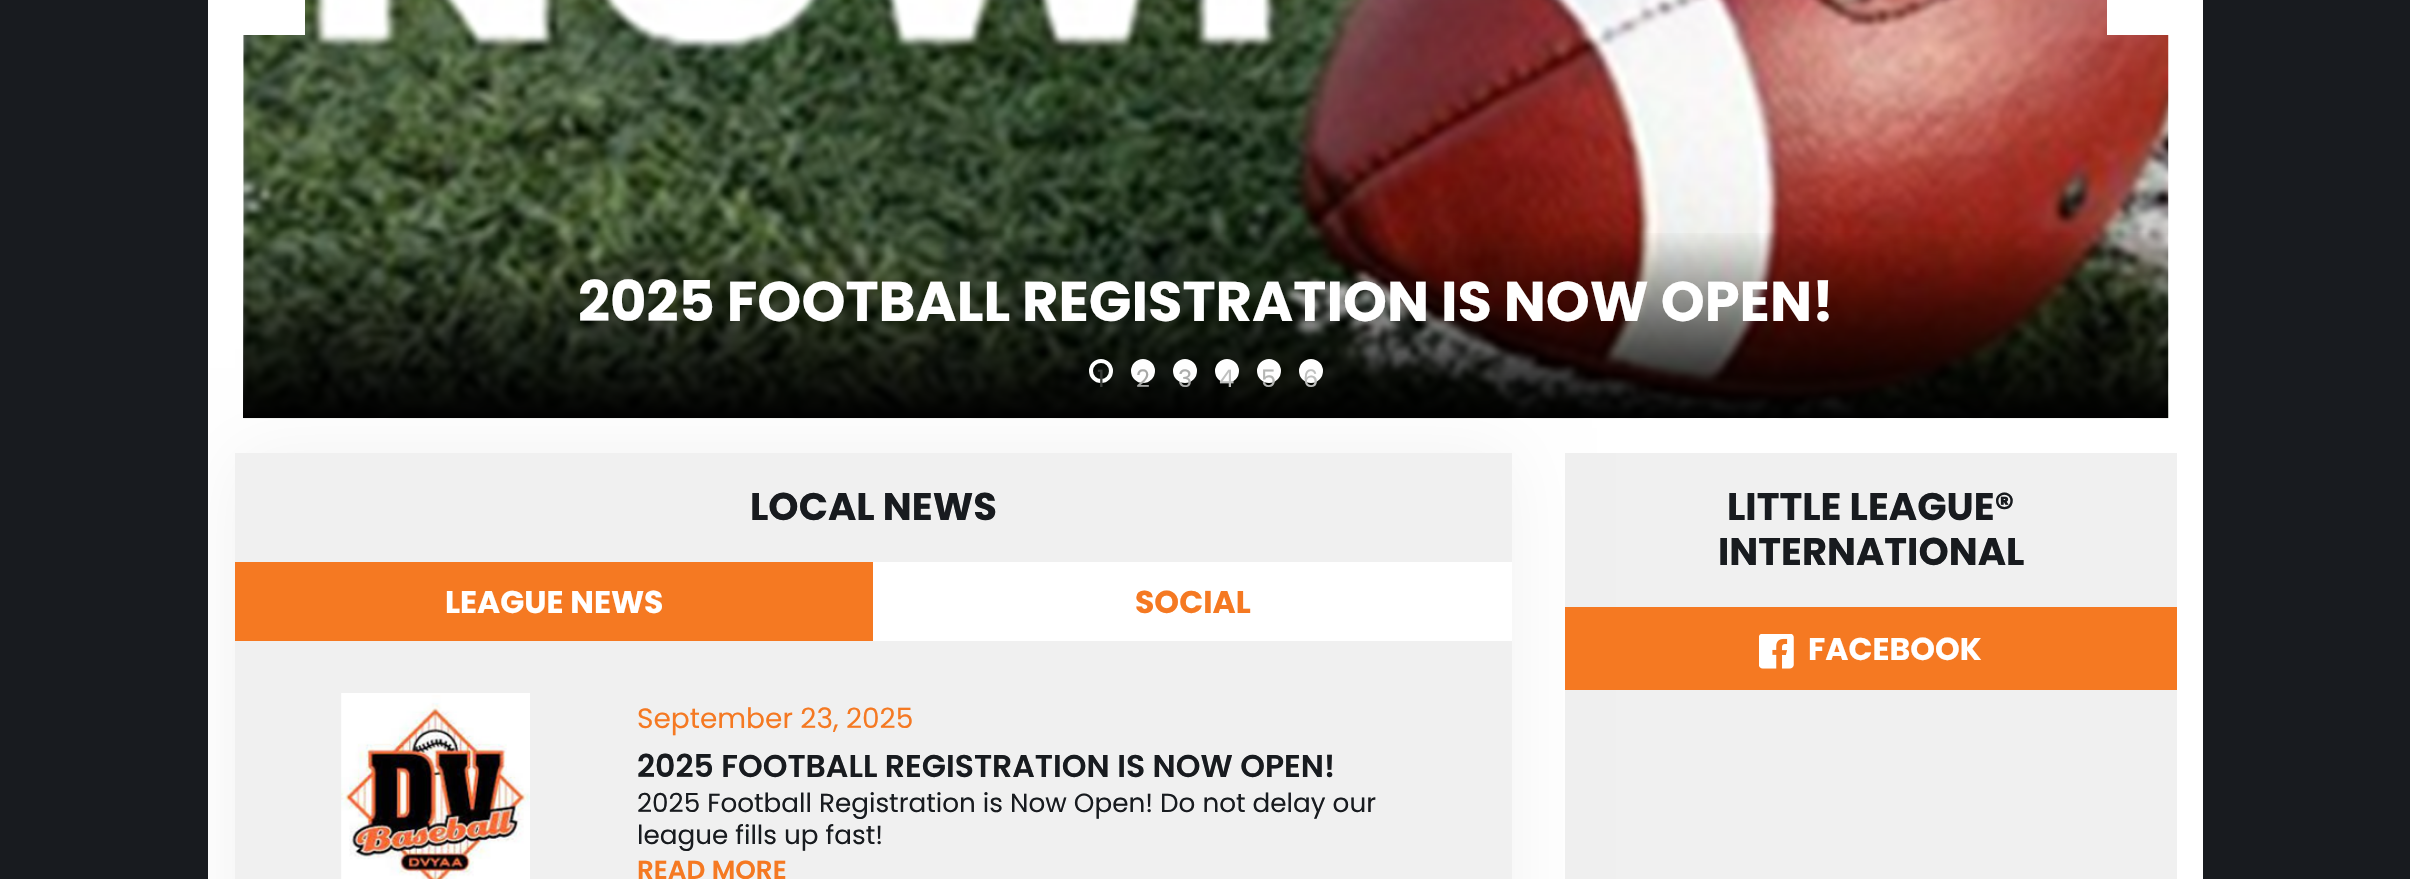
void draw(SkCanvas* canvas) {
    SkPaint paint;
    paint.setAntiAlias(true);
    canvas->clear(0xFF181B1F);
    paint.setColor(0xFFFFFFFF);
    canvas->drawRect(SkRect::MakeXYWH(208, 35, 1995, 844), paint);
    canvas->drawImageRect(SkImages::DeferredFromEncodedData(SkData::MakeFromFileName("img1.png")), SkRect::MakeXYWH(243, 0, 1926, 419), SkSamplingOptions());
    canvas->drawRect(SkRect::MakeXYWH(208, 0, 97, 35), paint);
    canvas->drawRect(SkRect::MakeXYWH(2107, 0, 96, 35), paint);
    {
        const SkColor colors[] = {0x00000000, 0xFF000000};
        const float stops[] = {0, 1};
        const SkPoint ends[] = {{1206, 229}, {1206, 418}};
        paint.setShader(SkGradientShader::MakeLinear(ends, colors, stops, 2, SkTileMode::kClamp));
        paint.setAlpha(255);
    }
    canvas->drawRect(SkRect::MakeXYWH(243, 233, 1925, 185), paint);
    SkFont font1(fontMgr->matchFamilyStyle("Poppins", SkFontStyle::Bold()), 56);
    font1.setSubpixel(true);
    paint.setShader(nullptr);
    paint.setColor(0xFFFFFFFF);
    canvas->drawString("2025 FOOTBALL REGISTRATION IS NOW OPEN!", 578, 321, font1, paint);
    paint.setStyle(SkPaint::kStroke_Style);
    paint.setStrokeWidth(4);
    canvas->drawCircle(1101, 371, 10, paint);
    SkFont font2(fontMgr->matchFamilyStyle("Poppins", SkFontStyle::Normal()), 24);
    font2.setSubpixel(true);
    paint.setStyle(SkPaint::kFill_Style);
    paint.setColor(0xFF393C39);
    canvas->drawString("1", 1097, 387, font2, paint);
    paint.setColor(0xFFFFFFFF);
    canvas->drawCircle(1143, 371, 10, paint);
    paint.setStyle(SkPaint::kStroke_Style);
    canvas->drawCircle(1143, 371, 10, paint);
    paint.setStyle(SkPaint::kFill_Style);
    paint.setColor(0xFFA8A9A7);
    canvas->drawString("2", 1136, 387, font2, paint);
    paint.setColor(0xFFFFFFFF);
    canvas->drawCircle(1185, 371, 10, paint);
    paint.setStyle(SkPaint::kStroke_Style);
    canvas->drawCircle(1185, 371, 10, paint);
    paint.setStyle(SkPaint::kFill_Style);
    paint.setColor(0xFFADAEAD);
    canvas->drawString("3", 1178, 387, font2, paint);
    paint.setColor(0xFFFFFFFF);
    canvas->drawCircle(1227, 371, 10, paint);
    paint.setStyle(SkPaint::kStroke_Style);
    canvas->drawCircle(1227, 371, 10, paint);
    paint.setStyle(SkPaint::kFill_Style);
    paint.setColor(0xFFC0C1C0);
    canvas->drawString("4", 1219, 387, font2, paint);
    paint.setColor(0xFFFFFFFF);
    canvas->drawCircle(1269, 371, 10, paint);
    paint.setStyle(SkPaint::kStroke_Style);
    canvas->drawCircle(1269, 371, 10, paint);
    paint.setStyle(SkPaint::kFill_Style);
    paint.setColor(0xFFB6B7B5);
    canvas->drawString("5", 1261, 387, font2, paint);
    paint.setColor(0xFFFFFFFF);
    canvas->drawCircle(1311, 371, 10, paint);
    paint.setStyle(SkPaint::kStroke_Style);
    canvas->drawCircle(1311, 371, 10, paint);
    paint.setStyle(SkPaint::kFill_Style);
    paint.setColor(0xFFC0C1C0);
    canvas->drawString("6", 1303, 387, font2, paint);
    paint.setColor(0xFFF0F0F0);
    canvas->drawRect(SkRect::MakeXYWH(1565, 453, 612, 426), paint);
    paint.setColor(0x0D000000);
    paint.setMaskFilter(SkMaskFilter::MakeBlur(kNormal_SkBlurStyle, 35));
    canvas->drawRect(SkRect::MakeXYWH(235, 453, 1277, 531), paint);
    paint.setMaskFilter(nullptr);
    paint.setColor(0xFFF0F0F0);
    canvas->drawRect(SkRect::MakeXYWH(235, 453, 1277, 426), paint);
    SkFont font3(fontMgr->matchFamilyStyle("Poppins", SkFontStyle::Bold()), 38.5f);
    font3.setSubpixel(true);
    paint.setColor(0xFF181B1F);
    canvas->drawString("LOCAL NEWS", 750, 520, font3, paint);
    paint.setColor(0xFFFFFFFF);
    canvas->drawRect(SkRect::MakeXYWH(873, 562, 639, 79), paint);
    paint.setColor(0xFFF57922);
    canvas->drawRect(SkRect::MakeXYWH(235, 562, 638, 79), paint);
    SkFont font4(fontMgr->matchFamilyStyle("Poppins", SkFontStyle::Bold()), 31.5f);
    font4.setSubpixel(true);
    paint.setColor(0xFFFFFFFF);
    canvas->drawString("LEAGUE NEWS", 445, 613, font4, paint);
    paint.setColor(0xFFF57922);
    canvas->drawString("SOCIAL", 1135, 613, font4, paint);
    canvas->drawImageRect(SkImages::DeferredFromEncodedData(SkData::MakeFromFileName("img2.png")), SkRect::MakeXYWH(341, 693, 189, 186), SkSamplingOptions());
    SkFont font5(fontMgr->matchFamilyStyle("Poppins", SkFontStyle::Normal()), 28);
    font5.setSubpixel(true);
    canvas->drawString("September 23, 2025", 637, 728, font5, paint);
    SkFont font6(fontMgr->matchFamilyStyle("Poppins", SkFontStyle(600, SkFontStyle::kNormal_Width, SkFontStyle::kUpright_Slant)), 31.5f);
    font6.setSubpixel(true);
    paint.setColor(0xFF181B1F);
    canvas->drawString("2025 FOOTBALL REGISTRATION IS NOW OPEN!", 637, 777, font6, paint);
    SkFont font7(fontMgr->matchFamilyStyle("Poppins", SkFontStyle::Normal()), 26.25f);
    font7.setSubpixel(true);
    canvas->drawString("2025 Football Registration is Now Open! Do not delay our", 637, 812, font7, paint);
    canvas->drawString("league fills up fast!", 637, 844, font7, paint);
    SkFont font8(fontMgr->matchFamilyStyle("Poppins", SkFontStyle(600, SkFontStyle::kNormal_Width, SkFontStyle::kUpright_Slant)), 26.25f);
    font8.setSubpixel(true);
    paint.setColor(0xFFF57922);
    canvas->drawString("READ MORE", 637, 879, font8, paint);
    paint.setColor(0xFF181B1F);
    canvas->drawString("LITTLE LEAGUE®", 1727, 520, font3, paint);
    canvas->drawString("INTERNATIONAL", 1718, 565, font3, paint);
    paint.setColor(0xFFF57922);
    canvas->drawRect(SkRect::MakeXYWH(1565, 607, 612, 83), paint);
    canvas->drawImageRect(SkImages::DeferredFromEncodedData(SkData::MakeFromFileName("img3.png")), SkRect::MakeXYWH(1759, 634, 35, 35), SkSamplingOptions());
    paint.setColor(0xFFFFFFFF);
    canvas->drawString("FACEBOOK", 1808, 660, font4, paint);
}
